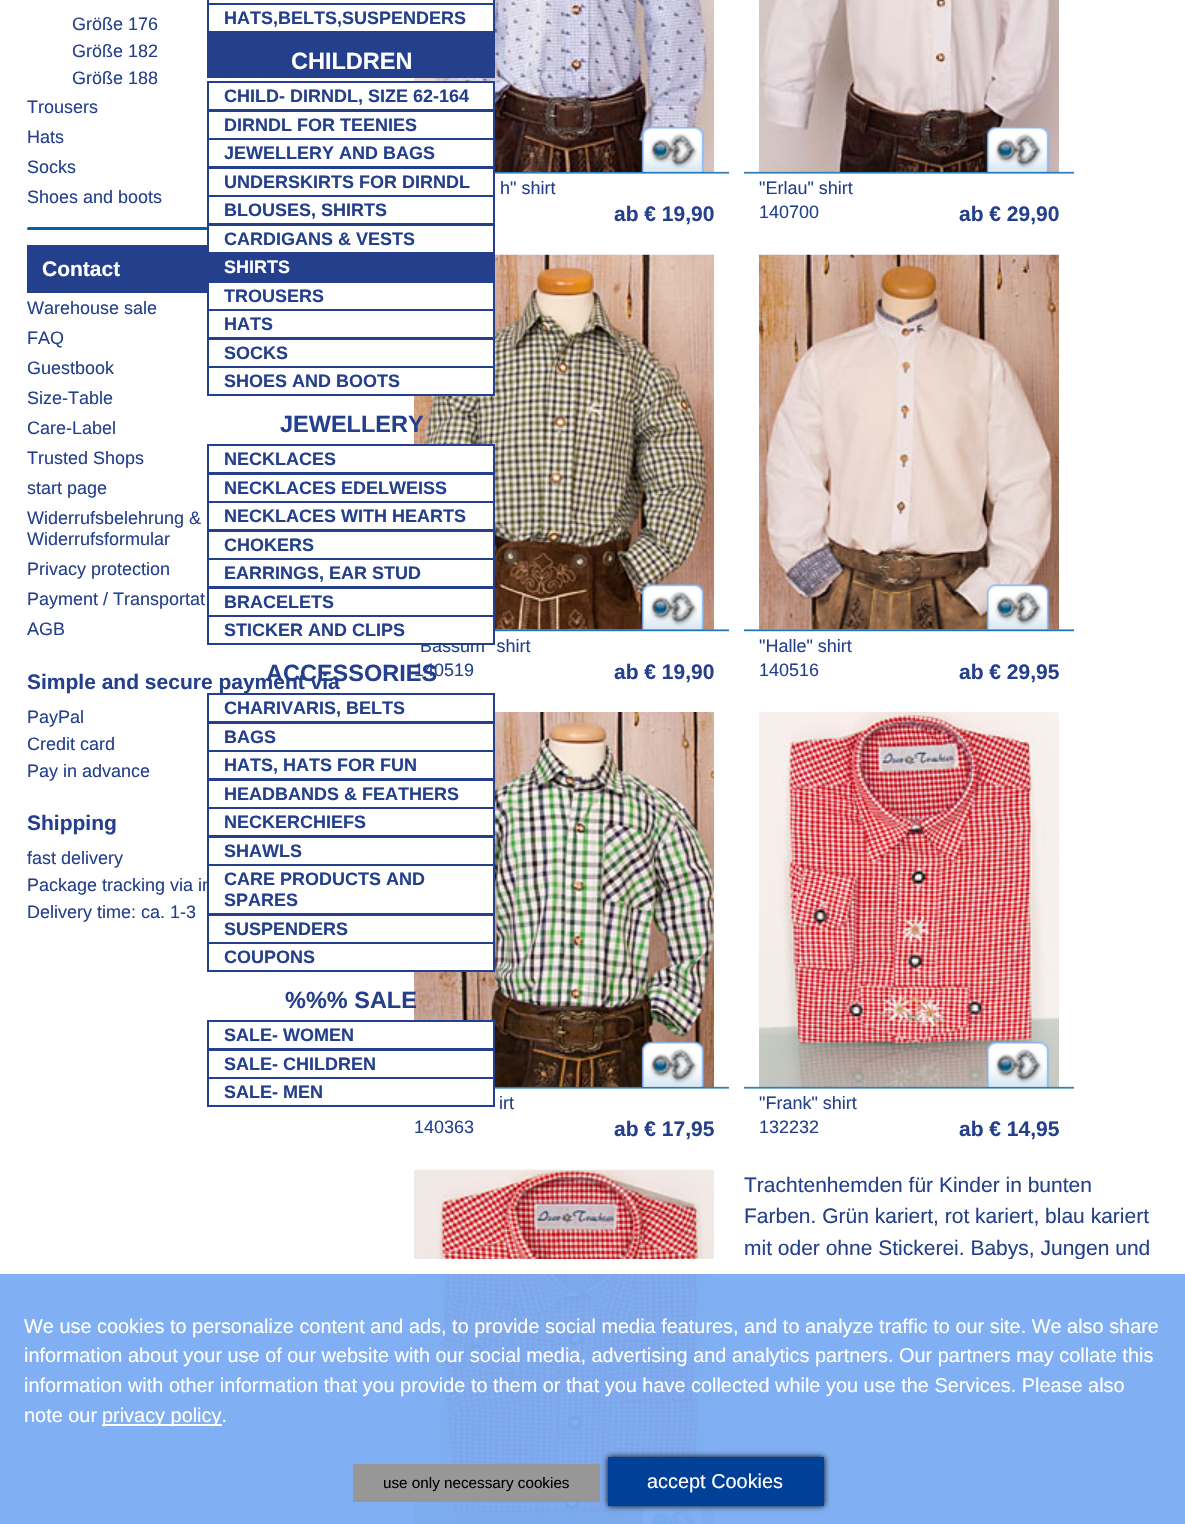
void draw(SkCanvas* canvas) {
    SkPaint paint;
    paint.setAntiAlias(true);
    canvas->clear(0xFFFFFFFF);
    canvas->drawImageRect(SkImages::DeferredFromEncodedData(SkData::MakeFromFileName("img1.png")), SkRect::MakeXYWH(414, 0, 300, 172), SkSamplingOptions());
    paint.setColor(0xFFFFFFFF);
    canvas->drawRect(SkRect::MakeXYWH(414, 0, 81, 3), paint);
    paint.setStyle(SkPaint::kStroke_Style);
    paint.setStrokeWidth(2);
    paint.setColor(0xFF24408C);
    canvas->drawRect(SkRect::MakeXYWH(208, -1, 286, 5), paint);
    paint.setStyle(SkPaint::kFill_Style);
    paint.setColor(0xFFFFFFFF);
    canvas->drawRect(SkRect::MakeXYWH(414, 5, 79, 26), paint);
    paint.setStyle(SkPaint::kStroke_Style);
    paint.setColor(0xFF24408C);
    canvas->drawRect(SkRect::MakeXYWH(208, 4, 286, 28), paint);
    SkFont font1(fontMgr->matchFamilyStyle("Liberation Sans", SkFontStyle::Bold()), 18);
    font1.setSubpixel(true);
    paint.setStyle(SkPaint::kFill_Style);
    canvas->drawString("HATS,BELTS,SUSPENDERS", 224, 24, font1, paint);
    canvas->drawRect(SkRect::MakeXYWH(207, 33, 288, 45), paint);
    SkFont font2(fontMgr->matchFamilyStyle("Liberation Sans", SkFontStyle::Bold()), 23.5f);
    font2.setSubpixel(true);
    paint.setColor(0xFFFFFFFF);
    canvas->drawString("CHILDREN", 291, 69, font2, paint);
    canvas->drawRect(SkRect::MakeXYWH(414, 83, 79, 26), paint);
    paint.setStyle(SkPaint::kStroke_Style);
    paint.setColor(0xFF24408C);
    canvas->drawRect(SkRect::MakeXYWH(208, 82, 286, 28), paint);
    paint.setStyle(SkPaint::kFill_Style);
    canvas->drawString("CHILD- DIRNDL, SIZE 62-164", 224, 102, font1, paint);
    paint.setColor(0xFFFFFFFF);
    canvas->drawRect(SkRect::MakeXYWH(414, 112, 79, 26), paint);
    paint.setStyle(SkPaint::kStroke_Style);
    paint.setColor(0xFF24408C);
    canvas->drawRect(SkRect::MakeXYWH(208, 111, 286, 28), paint);
    paint.setStyle(SkPaint::kFill_Style);
    canvas->drawString("DIRNDL FOR TEENIES", 224, 131, font1, paint);
    paint.setColor(0xFFFFFFFF);
    canvas->drawRect(SkRect::MakeXYWH(414, 140, 79, 26), paint);
    paint.setStyle(SkPaint::kStroke_Style);
    paint.setColor(0xFF24408C);
    canvas->drawRect(SkRect::MakeXYWH(208, 139, 286, 28), paint);
    paint.setStyle(SkPaint::kFill_Style);
    canvas->drawString("JEWELLERY AND BAGS", 224, 159, font1, paint);
    paint.setColor(0xFFFFFFFF);
    canvas->drawRect(SkRect::MakeXYWH(414, 169, 79, 3), paint);
    paint.setStyle(SkPaint::kStroke_Style);
    paint.setColor(0xFF24408C);
    canvas->drawRect(SkRect::MakeXYWH(208, 168, 286, 28), paint);
    paint.setStyle(SkPaint::kFill_Style);
    canvas->drawString("UNDERSKIRTS FOR DIRNDL", 224, 188, font1, paint);
    paint.setStyle(SkPaint::kStroke_Style);
    canvas->drawRect(SkRect::MakeXYWH(208, 196, 286, 28), paint);
    paint.setStyle(SkPaint::kFill_Style);
    canvas->drawString("BLOUSES, SHIRTS", 224, 216, font1, paint);
    paint.setColor(0xFF0063A7);
    canvas->drawRoundRect(SkRect::MakeXYWH(27, 227, 350, 3), 1.5f, 1.5f, paint);
    paint.setColor(0xFFFFFFFF);
    canvas->drawRect(SkRect::MakeXYWH(209, 227, 168, 3), paint);
    paint.setStyle(SkPaint::kStroke_Style);
    paint.setColor(0xFF24408C);
    canvas->drawRect(SkRect::MakeXYWH(208, 225, 286, 28), paint);
    paint.setStyle(SkPaint::kFill_Style);
    canvas->drawString("CARDIGANS & VESTS", 224, 245, font1, paint);
    canvas->drawImageRect(SkImages::DeferredFromEncodedData(SkData::MakeFromFileName("img5.png")), SkRect::MakeXYWH(414, 254, 300, 376), SkSamplingOptions());
    canvas->drawRect(SkRect::MakeXYWH(207, 254, 288, 27), paint);
    paint.setColor(0xFFFFFFFF);
    canvas->drawString("SHIRTS", 224, 273, font1, paint);
    canvas->drawRect(SkRect::MakeXYWH(414, 283, 79, 26), paint);
    paint.setStyle(SkPaint::kStroke_Style);
    paint.setColor(0xFF24408C);
    canvas->drawRect(SkRect::MakeXYWH(208, 282, 286, 28), paint);
    paint.setStyle(SkPaint::kFill_Style);
    canvas->drawString("TROUSERS", 224, 302, font1, paint);
    paint.setColor(0xFFFFFFFF);
    canvas->drawRect(SkRect::MakeXYWH(414, 311, 79, 26), paint);
    paint.setStyle(SkPaint::kStroke_Style);
    paint.setColor(0xFF24408C);
    canvas->drawRect(SkRect::MakeXYWH(208, 310, 286, 28), paint);
    paint.setStyle(SkPaint::kFill_Style);
    canvas->drawString("HATS", 224, 330, font1, paint);
    paint.setColor(0xFFFFFFFF);
    canvas->drawRect(SkRect::MakeXYWH(414, 340, 79, 26), paint);
    paint.setStyle(SkPaint::kStroke_Style);
    paint.setColor(0xFF24408C);
    canvas->drawRect(SkRect::MakeXYWH(208, 339, 286, 28), paint);
    paint.setStyle(SkPaint::kFill_Style);
    canvas->drawString("SOCKS", 224, 359, font1, paint);
    paint.setColor(0xFFFFFFFF);
    canvas->drawRect(SkRect::MakeXYWH(414, 368, 79, 26), paint);
    paint.setStyle(SkPaint::kStroke_Style);
    paint.setColor(0xFF24408C);
    canvas->drawRect(SkRect::MakeXYWH(208, 367, 286, 28), paint);
    paint.setStyle(SkPaint::kFill_Style);
    canvas->drawString("SHOES AND BOOTS", 224, 387, font1, paint);
    canvas->drawString("JEWELLERY", 280, 432, font2, paint);
    paint.setColor(0xFFFFFFFF);
    canvas->drawRect(SkRect::MakeXYWH(414, 446, 79, 26), paint);
    paint.setStyle(SkPaint::kStroke_Style);
    paint.setColor(0xFF24408C);
    canvas->drawRect(SkRect::MakeXYWH(208, 445, 286, 28), paint);
    paint.setStyle(SkPaint::kFill_Style);
    canvas->drawString("NECKLACES", 224, 465, font1, paint);
    paint.setColor(0xFFFFFFFF);
    canvas->drawRect(SkRect::MakeXYWH(414, 475, 79, 26), paint);
    paint.setStyle(SkPaint::kStroke_Style);
    paint.setColor(0xFF24408C);
    canvas->drawRect(SkRect::MakeXYWH(208, 474, 286, 28), paint);
    paint.setStyle(SkPaint::kFill_Style);
    canvas->drawString("NECKLACES EDELWEISS", 224, 494, font1, paint);
    paint.setColor(0xFFFFFFFF);
    canvas->drawRect(SkRect::MakeXYWH(414, 503, 79, 26), paint);
    paint.setStyle(SkPaint::kStroke_Style);
    paint.setColor(0xFF24408C);
    canvas->drawRect(SkRect::MakeXYWH(208, 502, 286, 28), paint);
    paint.setStyle(SkPaint::kFill_Style);
    canvas->drawString("NECKLACES WITH HEARTS", 224, 522, font1, paint);
    paint.setColor(0xFFFFFFFF);
    canvas->drawRect(SkRect::MakeXYWH(414, 532, 79, 26), paint);
    paint.setStyle(SkPaint::kStroke_Style);
    paint.setColor(0xFF24408C);
    canvas->drawRect(SkRect::MakeXYWH(208, 531, 286, 28), paint);
    paint.setStyle(SkPaint::kFill_Style);
    canvas->drawString("CHOKERS", 224, 551, font1, paint);
    paint.setColor(0xFFFFFFFF);
    canvas->drawRect(SkRect::MakeXYWH(414, 560, 79, 26), paint);
    paint.setStyle(SkPaint::kStroke_Style);
    paint.setColor(0xFF24408C);
    canvas->drawRect(SkRect::MakeXYWH(208, 559, 286, 28), paint);
    paint.setStyle(SkPaint::kFill_Style);
    canvas->drawString("EARRINGS, EAR STUD", 224, 579, font1, paint);
    paint.setColor(0xFFFFFFFF);
    canvas->drawRect(SkRect::MakeXYWH(414, 589, 79, 26), paint);
    paint.setStyle(SkPaint::kStroke_Style);
    paint.setColor(0xFF24408C);
    canvas->drawRect(SkRect::MakeXYWH(208, 588, 286, 28), paint);
    paint.setStyle(SkPaint::kFill_Style);
    canvas->drawString("BRACELETS", 224, 608, font1, paint);
    SkFont font3(fontMgr->matchFamilyStyle("Liberation Sans", SkFontStyle::Normal()), 18);
    font3.setSubpixel(true);
    canvas->drawString("Bassum\" shirt", 420, 652, font3, paint);
    paint.setColor(0xFFFFFFFF);
    canvas->drawRect(SkRect::MakeXYWH(414, 617, 79, 26), paint);
    paint.setStyle(SkPaint::kStroke_Style);
    paint.setColor(0xFF24408C);
    canvas->drawRect(SkRect::MakeXYWH(208, 616, 286, 28), paint);
    paint.setStyle(SkPaint::kFill_Style);
    canvas->drawString("STICKER AND CLIPS", 224, 636, font1, paint);
    SkFont font4(fontMgr->matchFamilyStyle("Liberation Sans", SkFontStyle::Bold()), 21);
    font4.setSubpixel(true);
    canvas->drawString("Simple and secure payment via", 27, 689, font4, paint);
    canvas->drawString("140519", 414, 676, font3, paint);
    canvas->drawString("ACCESSORIES", 266, 681, font2, paint);
    canvas->drawImageRect(SkImages::DeferredFromEncodedData(SkData::MakeFromFileName("img9.png")), SkRect::MakeXYWH(414, 712, 300, 375), SkSamplingOptions());
    paint.setColor(0xFFFFFFFF);
    canvas->drawRect(SkRect::MakeXYWH(414, 712, 79, 9), paint);
    paint.setStyle(SkPaint::kStroke_Style);
    paint.setColor(0xFF24408C);
    canvas->drawRect(SkRect::MakeXYWH(208, 694, 286, 28), paint);
    paint.setStyle(SkPaint::kFill_Style);
    canvas->drawString("CHARIVARIS, BELTS", 224, 714, font1, paint);
    paint.setColor(0xFFFFFFFF);
    canvas->drawRect(SkRect::MakeXYWH(414, 724, 79, 26), paint);
    paint.setStyle(SkPaint::kStroke_Style);
    paint.setColor(0xFF24408C);
    canvas->drawRect(SkRect::MakeXYWH(208, 723, 286, 28), paint);
    paint.setStyle(SkPaint::kFill_Style);
    canvas->drawString("BAGS", 224, 743, font1, paint);
    paint.setColor(0xFFFFFFFF);
    canvas->drawRect(SkRect::MakeXYWH(414, 752, 79, 26), paint);
    paint.setStyle(SkPaint::kStroke_Style);
    paint.setColor(0xFF24408C);
    canvas->drawRect(SkRect::MakeXYWH(208, 751, 286, 28), paint);
    paint.setStyle(SkPaint::kFill_Style);
    canvas->drawString("HATS, HATS FOR FUN", 224, 771, font1, paint);
    paint.setColor(0xFFFFFFFF);
    canvas->drawRect(SkRect::MakeXYWH(414, 781, 79, 26), paint);
    paint.setStyle(SkPaint::kStroke_Style);
    paint.setColor(0xFF24408C);
    canvas->drawRect(SkRect::MakeXYWH(208, 780, 286, 28), paint);
    paint.setStyle(SkPaint::kFill_Style);
    canvas->drawString("HEADBANDS & FEATHERS", 224, 800, font1, paint);
    paint.setColor(0xFFFFFFFF);
    canvas->drawRect(SkRect::MakeXYWH(414, 809, 79, 26), paint);
    paint.setStyle(SkPaint::kStroke_Style);
    paint.setColor(0xFF24408C);
    canvas->drawRect(SkRect::MakeXYWH(208, 808, 286, 28), paint);
    paint.setStyle(SkPaint::kFill_Style);
    canvas->drawString("NECKERCHIEFS", 224, 828, font1, paint);
    paint.setColor(0xFFFFFFFF);
    canvas->drawRect(SkRect::MakeXYWH(414, 838, 79, 26), paint);
    paint.setStyle(SkPaint::kStroke_Style);
    paint.setColor(0xFF24408C);
    canvas->drawRect(SkRect::MakeXYWH(208, 837, 286, 28), paint);
    paint.setStyle(SkPaint::kFill_Style);
    canvas->drawString("SHAWLS", 224, 857, font1, paint);
    canvas->drawString("Package tracking via in", 27, 891, font3, paint);
    paint.setColor(0xFFFFFFFF);
    canvas->drawRect(SkRect::MakeXYWH(208, 865, 286, 49), paint);
    paint.setStyle(SkPaint::kStroke_Style);
    paint.setColor(0xFF24408C);
    canvas->drawRect(SkRect::MakeXYWH(208, 865, 286, 49), paint);
    paint.setStyle(SkPaint::kFill_Style);
    canvas->drawString("CARE PRODUCTS AND", 224, 885, font1, paint);
    canvas->drawString("SPARES", 224, 906, font1, paint);
    paint.setColor(0xFFFFFFFF);
    canvas->drawRect(SkRect::MakeXYWH(414, 916, 79, 26), paint);
    paint.setStyle(SkPaint::kStroke_Style);
    paint.setColor(0xFF24408C);
    canvas->drawRect(SkRect::MakeXYWH(208, 915, 286, 28), paint);
    paint.setStyle(SkPaint::kFill_Style);
    canvas->drawString("SUSPENDERS", 224, 935, font1, paint);
    paint.setColor(0xFFFFFFFF);
    canvas->drawRect(SkRect::MakeXYWH(414, 944, 79, 26), paint);
    paint.setStyle(SkPaint::kStroke_Style);
    paint.setColor(0xFF24408C);
    canvas->drawRect(SkRect::MakeXYWH(208, 943, 286, 28), paint);
    paint.setStyle(SkPaint::kFill_Style);
    canvas->drawString("COUPONS", 224, 963, font1, paint);
    canvas->drawString("%%% SALE", 285, 1008, font2, paint);
    paint.setColor(0xFFFFFFFF);
    canvas->drawRect(SkRect::MakeXYWH(414, 1022, 79, 26), paint);
    paint.setStyle(SkPaint::kStroke_Style);
    paint.setColor(0xFF24408C);
    canvas->drawRect(SkRect::MakeXYWH(208, 1021, 286, 28), paint);
    paint.setStyle(SkPaint::kFill_Style);
    canvas->drawString("SALE- WOMEN", 224, 1041, font1, paint);
    paint.setColor(0xFFFFFFFF);
    canvas->drawRect(SkRect::MakeXYWH(414, 1051, 79, 26), paint);
    paint.setStyle(SkPaint::kStroke_Style);
    paint.setColor(0xFF24408C);
    canvas->drawRect(SkRect::MakeXYWH(208, 1050, 286, 28), paint);
    paint.setStyle(SkPaint::kFill_Style);
    canvas->drawString("SALE- CHILDREN", 224, 1070, font1, paint);
    paint.setColor(0xFFFFFFFF);
    canvas->drawRect(SkRect::MakeXYWH(414, 1079, 79, 8), paint);
    paint.setStyle(SkPaint::kStroke_Style);
    paint.setColor(0xFF24408C);
    canvas->drawRect(SkRect::MakeXYWH(208, 1078, 286, 28), paint);
    paint.setStyle(SkPaint::kFill_Style);
    canvas->drawString("SALE- MEN", 224, 1098, font1, paint);
    canvas->drawString("Größe 176", 72, 30, font3, paint);
    canvas->drawString("Größe 182", 72, 57, font3, paint);
    canvas->drawString("Größe 188", 72, 84, font3, paint);
    canvas->drawString("Trousers", 27, 113, font3, paint);
    canvas->drawString("Hats", 27, 143, font3, paint);
    canvas->drawString("Socks", 27, 173, font3, paint);
    canvas->drawString("Shoes and boots", 27, 203, font3, paint);
    canvas->drawRect(SkRect::MakeXYWH(27, 245, 180, 48), paint);
    paint.setColor(0xFFFFFFFF);
    canvas->drawString("Contact", 42, 276, font4, paint);
    paint.setColor(0xFF24408C);
    canvas->drawString("Warehouse sale", 27, 314, font3, paint);
    canvas->drawString("FAQ", 27, 344, font3, paint);
    canvas->drawString("Guestbook", 27, 374, font3, paint);
    canvas->drawString("Size-Table", 27, 404, font3, paint);
    canvas->drawString("Care-Label", 27, 434, font3, paint);
    canvas->drawString("Trusted Shops", 27, 464, font3, paint);
    canvas->drawString("start page", 27, 494, font3, paint);
    canvas->drawString("Widerrufsbelehrung &", 27, 524, font3, paint);
    canvas->drawString("Widerrufsformular", 27, 545, font3, paint);
    canvas->drawString("Privacy protection", 27, 575, font3, paint);
    canvas->drawString("Payment / Transportat", 27, 605, font3, paint);
    canvas->drawString("AGB", 27, 635, font3, paint);
    canvas->drawString("PayPal", 27, 723, font3, paint);
    canvas->drawString("Credit card", 27, 750, font3, paint);
    canvas->drawString("Pay in advance", 27, 777, font3, paint);
    canvas->drawString("Shipping", 27, 830, font4, paint);
    canvas->drawString("fast delivery", 27, 864, font3, paint);
    canvas->drawString("Delivery time: ca. 1-3", 27, 918, font3, paint);
    canvas->drawImageRect(SkImages::DeferredFromEncodedData(SkData::MakeFromFileName("img2.png")), SkRect::MakeXYWH(495, 126, 234, 48), SkSamplingOptions());
    canvas->drawString("h\" shirt", 500, 194, font3, paint);
    canvas->drawString("ab € 19,90", 614, 221, font4, paint);
    canvas->drawImageRect(SkImages::DeferredFromEncodedData(SkData::MakeFromFileName("img3.png")), SkRect::MakeXYWH(759, 0, 300, 172), SkSamplingOptions());
    canvas->drawImageRect(SkImages::DeferredFromEncodedData(SkData::MakeFromFileName("img4.png")), SkRect::MakeXYWH(744, 126, 330, 48), SkSamplingOptions());
    canvas->drawString("\"Erlau\" shirt", 759, 194, font3, paint);
    canvas->drawString("140700", 759, 218, font3, paint);
    canvas->drawString("ab € 29,90", 959, 221, font4, paint);
    canvas->drawImageRect(SkImages::DeferredFromEncodedData(SkData::MakeFromFileName("img6.png")), SkRect::MakeXYWH(495, 584, 234, 48), SkSamplingOptions());
    canvas->drawString("ab € 19,90", 614, 679, font4, paint);
    canvas->drawImageRect(SkImages::DeferredFromEncodedData(SkData::MakeFromFileName("img7.png")), SkRect::MakeXYWH(759, 254, 300, 376), SkSamplingOptions());
    canvas->drawImageRect(SkImages::DeferredFromEncodedData(SkData::MakeFromFileName("img8.png")), SkRect::MakeXYWH(744, 584, 330, 48), SkSamplingOptions());
    canvas->drawString("\"Halle\" shirt", 759, 652, font3, paint);
    canvas->drawString("140516", 759, 676, font3, paint);
    canvas->drawString("ab € 29,95", 959, 679, font4, paint);
    canvas->drawImageRect(SkImages::DeferredFromEncodedData(SkData::MakeFromFileName("img10.png")), SkRect::MakeXYWH(495, 1041, 234, 48), SkSamplingOptions());
    canvas->drawString("irt", 499, 1109, font3, paint);
    canvas->drawString("140363", 414, 1133, font3, paint);
    canvas->drawString("ab € 17,95", 614, 1136, font4, paint);
    canvas->drawImageRect(SkImages::DeferredFromEncodedData(SkData::MakeFromFileName("img11.png")), SkRect::MakeXYWH(759, 712, 300, 375), SkSamplingOptions());
    canvas->drawImageRect(SkImages::DeferredFromEncodedData(SkData::MakeFromFileName("img12.png")), SkRect::MakeXYWH(744, 1041, 330, 48), SkSamplingOptions());
    canvas->drawString("\"Frank\" shirt", 759, 1109, font3, paint);
    canvas->drawString("132232", 759, 1133, font3, paint);
    canvas->drawString("ab € 14,95", 959, 1136, font4, paint);
    canvas->drawImageRect(SkImages::DeferredFromEncodedData(SkData::MakeFromFileName("img13.png")), SkRect::MakeXYWH(414, 1169, 300, 355), SkSamplingOptions());
    canvas->drawImageRect(SkImages::DeferredFromEncodedData(SkData::MakeFromFileName("img14.png")), SkRect::MakeXYWH(641, 1506, 63, 18), SkSamplingOptions());
    SkFont font5(fontMgr->matchFamilyStyle("Liberation Sans", SkFontStyle::Normal()), 21);
    font5.setSubpixel(true);
    canvas->drawString("Trachtenhemden für Kinder in bunten", 744, 1192, font5, paint);
    canvas->drawString("Farben. Grün kariert, rot kariert, blau kariert", 744, 1223, font5, paint);
    canvas->drawString("mit oder ohne Stickerei. Babys, Jungen und", 744, 1255, font5, paint);
    paint.setColor(0x80000000);
    canvas->drawRect(SkRect::MakeXYWH(0, 1274, 1185, 250), paint);
    paint.setColor(0xFFFFFFFF);
    canvas->drawRect(SkRect::MakeXYWH(414, 1259, 668, 15), paint);
    paint.setColor(0xE67FB5FF);
    canvas->drawRect(SkRect::MakeXYWH(0, 1274, 1185, 250), paint);
    SkFont font6(fontMgr->matchFamilyStyle("Liberation Sans", SkFontStyle::Normal()), 19.9f);
    font6.setSubpixel(true);
    paint.setColor(0xFFFFFFFF);
    canvas->drawString("We use cookies to personalize content and ads, to provide social media features, and to analyze traffic to our site. We also share", 24, 1333, font6, paint);
    canvas->drawString("information about your use of our website with our social media, advertising and analytics partners. Our partners may collate this", 24, 1362, font6, paint);
    canvas->drawString("information with other information that you provide to them or that you have collected while you use the Services. Please also", 24, 1392, font6, paint);
    canvas->drawString("note our", 24, 1422, font6, paint);
    canvas->drawRect(SkRect::MakeXYWH(102, 1424, 120, 2), paint);
    canvas->drawString("privacy policy.", 102, 1422, font6, paint);
    paint.setColor(0xFF979797);
    canvas->drawRect(SkRect::MakeXYWH(353, 1464, 247, 38), paint);
    SkFont font7(fontMgr->matchFamilyStyle("Liberation Sans", SkFontStyle::Normal()), 15.25f);
    font7.setSubpixel(true);
    paint.setColor(0xFF000000);
    canvas->drawString("use only necessary cookies", 383, 1488, font7, paint);
    paint.setMaskFilter(SkMaskFilter::MakeBlur(kNormal_SkBlurStyle, 3));
    canvas->drawRect(SkRect::MakeXYWH(608, 1457, 216, 49), paint);
    paint.setMaskFilter(nullptr);
    paint.setColor(0xFF004099);
    canvas->drawRect(SkRect::MakeXYWH(608, 1457, 216, 49), paint);
    paint.setColor(0xFFFFFFFF);
    canvas->drawString("accept Cookies", 647, 1488, font6, paint);
}
